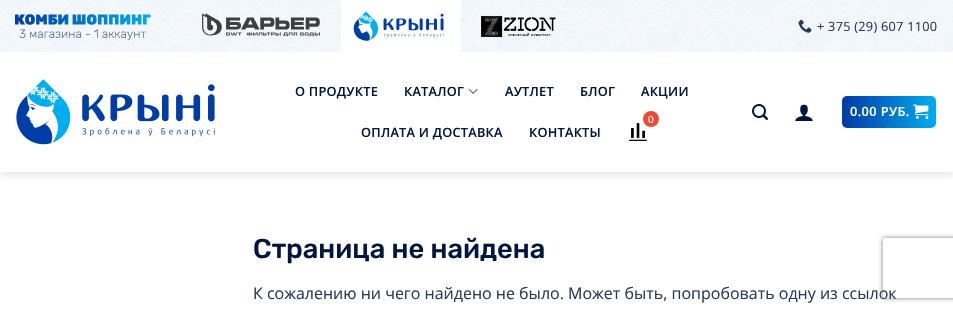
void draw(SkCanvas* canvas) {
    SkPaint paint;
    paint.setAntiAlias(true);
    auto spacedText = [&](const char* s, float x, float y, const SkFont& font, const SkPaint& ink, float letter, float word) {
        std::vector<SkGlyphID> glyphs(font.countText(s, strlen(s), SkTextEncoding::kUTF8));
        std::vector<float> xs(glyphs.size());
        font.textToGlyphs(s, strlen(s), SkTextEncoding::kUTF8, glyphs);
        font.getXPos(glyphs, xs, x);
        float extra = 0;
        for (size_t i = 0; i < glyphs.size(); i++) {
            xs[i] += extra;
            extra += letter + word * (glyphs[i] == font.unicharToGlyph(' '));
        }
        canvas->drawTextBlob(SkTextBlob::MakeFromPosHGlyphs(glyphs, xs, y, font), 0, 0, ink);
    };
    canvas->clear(0xFFFFFFFF);
    canvas->save();
    canvas->clipRect(SkRect::MakeXYWH(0, 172, 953, 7));
    paint.setColor(0x26000000);
    paint.setMaskFilter(SkMaskFilter::MakeBlur(kNormal_SkBlurStyle, 5));
    canvas->drawRect(SkRect::MakeXYWH(1, 1, 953, 172), paint);
    paint.setMaskFilter(nullptr);
    canvas->restore();
    canvas->drawImageRect(SkImages::DeferredFromEncodedData(SkData::MakeFromFileName("img1.png")), SkRect::MakeXYWH(0, 0, 953, 52), SkSamplingOptions());
    canvas->drawImageRect(SkImages::DeferredFromEncodedData(SkData::MakeFromFileName("img2.png")), SkRect::MakeXYWH(15, 14, 136, 27), SkSamplingOptions());
    canvas->drawImageRect(SkImages::DeferredFromEncodedData(SkData::MakeFromFileName("img3.png")), SkRect::MakeXYWH(202, 13, 118, 24), SkSamplingOptions());
    paint.setColor(0xFFFFFFFF);
    canvas->drawRect(SkRect::MakeXYWH(341, 0, 120, 52), paint);
    canvas->drawImageRect(SkImages::DeferredFromEncodedData(SkData::MakeFromFileName("img4.png")), SkRect::MakeXYWH(353, 11, 91, 30), SkSamplingOptions());
    canvas->drawImageRect(SkImages::DeferredFromEncodedData(SkData::MakeFromFileName("img5.png")), SkRect::MakeXYWH(481, 15, 75, 23), SkSamplingOptions());
    canvas->drawImageRect(SkImages::DeferredFromEncodedData(SkData::MakeFromFileName("img6.png")), SkRect::MakeXYWH(798, 19, 14, 14), SkSamplingOptions());
    SkFont font1(fontMgr->matchFamilyStyle("Open Sans", SkFontStyle::Normal()), 12.75f);
    font1.setSubpixel(true);
    paint.setColor(0xFF273A5D);
    spacedText("+ 375 (29) 607 1100", 817, 31, font1, paint, 0.25f, 0);
    canvas->drawImageRect(SkImages::DeferredFromEncodedData(SkData::MakeFromFileName("img7.png")), SkRect::MakeXYWH(16, 79, 199, 66), SkSamplingOptions());
    SkFont font2(fontMgr->matchFamilyStyle("Open Sans", SkFontStyle(600, SkFontStyle::kNormal_Width, SkFontStyle::kUpright_Slant)), 12.75f);
    font2.setSubpixel(true);
    paint.setColor(0xFF011741);
    spacedText("О ПРОДУКТЕ", 295, 96, font2, paint, 0.25f, 0);
    spacedText("КАТАЛОГ", 404, 96, font2, paint, 0.25f, 0);
    canvas->drawImageRect(SkImages::DeferredFromEncodedData(SkData::MakeFromFileName("img8.png")), SkRect::MakeXYWH(468, 88, 10, 6), SkSamplingOptions());
    spacedText("АУТЛЕТ", 505, 96, font2, paint, 0.25f, 0);
    spacedText("БЛОГ", 580, 96, font2, paint, 0.25f, 0);
    spacedText("АКЦИИ", 641, 96, font2, paint, 0.25f, 0);
    canvas->drawImageRect(SkImages::DeferredFromEncodedData(SkData::MakeFromFileName("img9.png")), SkRect::MakeXYWH(629, 123, 18, 18), SkSamplingOptions());
    paint.setColor(0xFFE94B35);
    canvas->drawCircle(651, 119, 8, paint);
    SkFont font3(fontMgr->matchFamilyStyle("Open Sans", SkFontStyle::Normal()), 10);
    font3.setSubpixel(true);
    paint.setColor(0xFFFFFFFF);
    spacedText("0", 648, 123, font3, paint, 0.25f, 0);
    paint.setColor(0xFF011741);
    spacedText("ОПЛАТА И ДОСТАВКА", 361, 137, font2, paint, 0.25f, 0);
    spacedText("КОНТАКТЫ", 529, 137, font2, paint, 0.25f, 0);
    canvas->drawImageRect(SkImages::DeferredFromEncodedData(SkData::MakeFromFileName("img10.png")), SkRect::MakeXYWH(752, 104, 16, 16), SkSamplingOptions());
    canvas->drawImageRect(SkImages::DeferredFromEncodedData(SkData::MakeFromFileName("img11.png")), SkRect::MakeXYWH(795, 104, 18, 17), SkSamplingOptions());
    {
        const SkColor colors[] = {0xFF00ACEF, 0xFF023BA6};
        const float stops[] = {0, 1};
        const SkPoint ends[] = {{936, 112}, {842, 112}};
        paint.setShader(SkGradientShader::MakeLinear(ends, colors, stops, 2, SkTileMode::kClamp));
        paint.setAlpha(255);
    }
    canvas->drawRoundRect(SkRect::MakeXYWH(842, 96, 94, 32), 5, 5, paint);
    paint.setShader(nullptr);
    paint.setColor(0xFFFFFFFF);
    spacedText("0.00 РУБ.", 850, 116, font2, paint, 0.4f, 0);
    canvas->drawImageRect(SkImages::DeferredFromEncodedData(SkData::MakeFromFileName("img12.png")), SkRect::MakeXYWH(913, 104, 16, 15), SkSamplingOptions());
    SkFont font4(fontMgr->matchFamilyStyle("Rubik", SkFontStyle(500, SkFontStyle::kNormal_Width, SkFontStyle::kUpright_Slant)), 27.25f);
    font4.setSubpixel(true);
    paint.setColor(0xFF011741);
    canvas->drawString("Страница не найдена", 253, 258, font4, paint);
    SkFont font5(fontMgr->matchFamilyStyle("Open Sans", SkFontStyle::Normal()), 16);
    font5.setSubpixel(true);
    paint.setColor(0xFF273A5D);
    canvas->drawString("К сожалению ни чего найдено не было. Может быть, попробовать одну из ссылок", 253, 299, font5, paint);
    canvas->save();
    canvas->clipPath(SkPathBuilder(SkPathFillType::kEvenOdd).moveTo(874, 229).lineTo(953, 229).lineTo(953, 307).lineTo(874, 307).close().moveTo(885, 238).lineTo(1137, 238).cubicTo(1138, 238, 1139, 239, 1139, 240).lineTo(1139, 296).cubicTo(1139, 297, 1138, 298, 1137, 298).lineTo(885, 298).cubicTo(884, 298, 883, 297, 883, 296).lineTo(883, 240).cubicTo(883, 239, 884, 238, 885, 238).close().detach(), true);
    paint.setColor(0xFF808080);
    paint.setMaskFilter(SkMaskFilter::MakeBlur(kNormal_SkBlurStyle, 2.5f));
    canvas->drawRoundRect(SkRect::MakeXYWH(883, 238, 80, 60), 2, 2, paint);
    paint.setMaskFilter(nullptr);
    canvas->restore();
}
